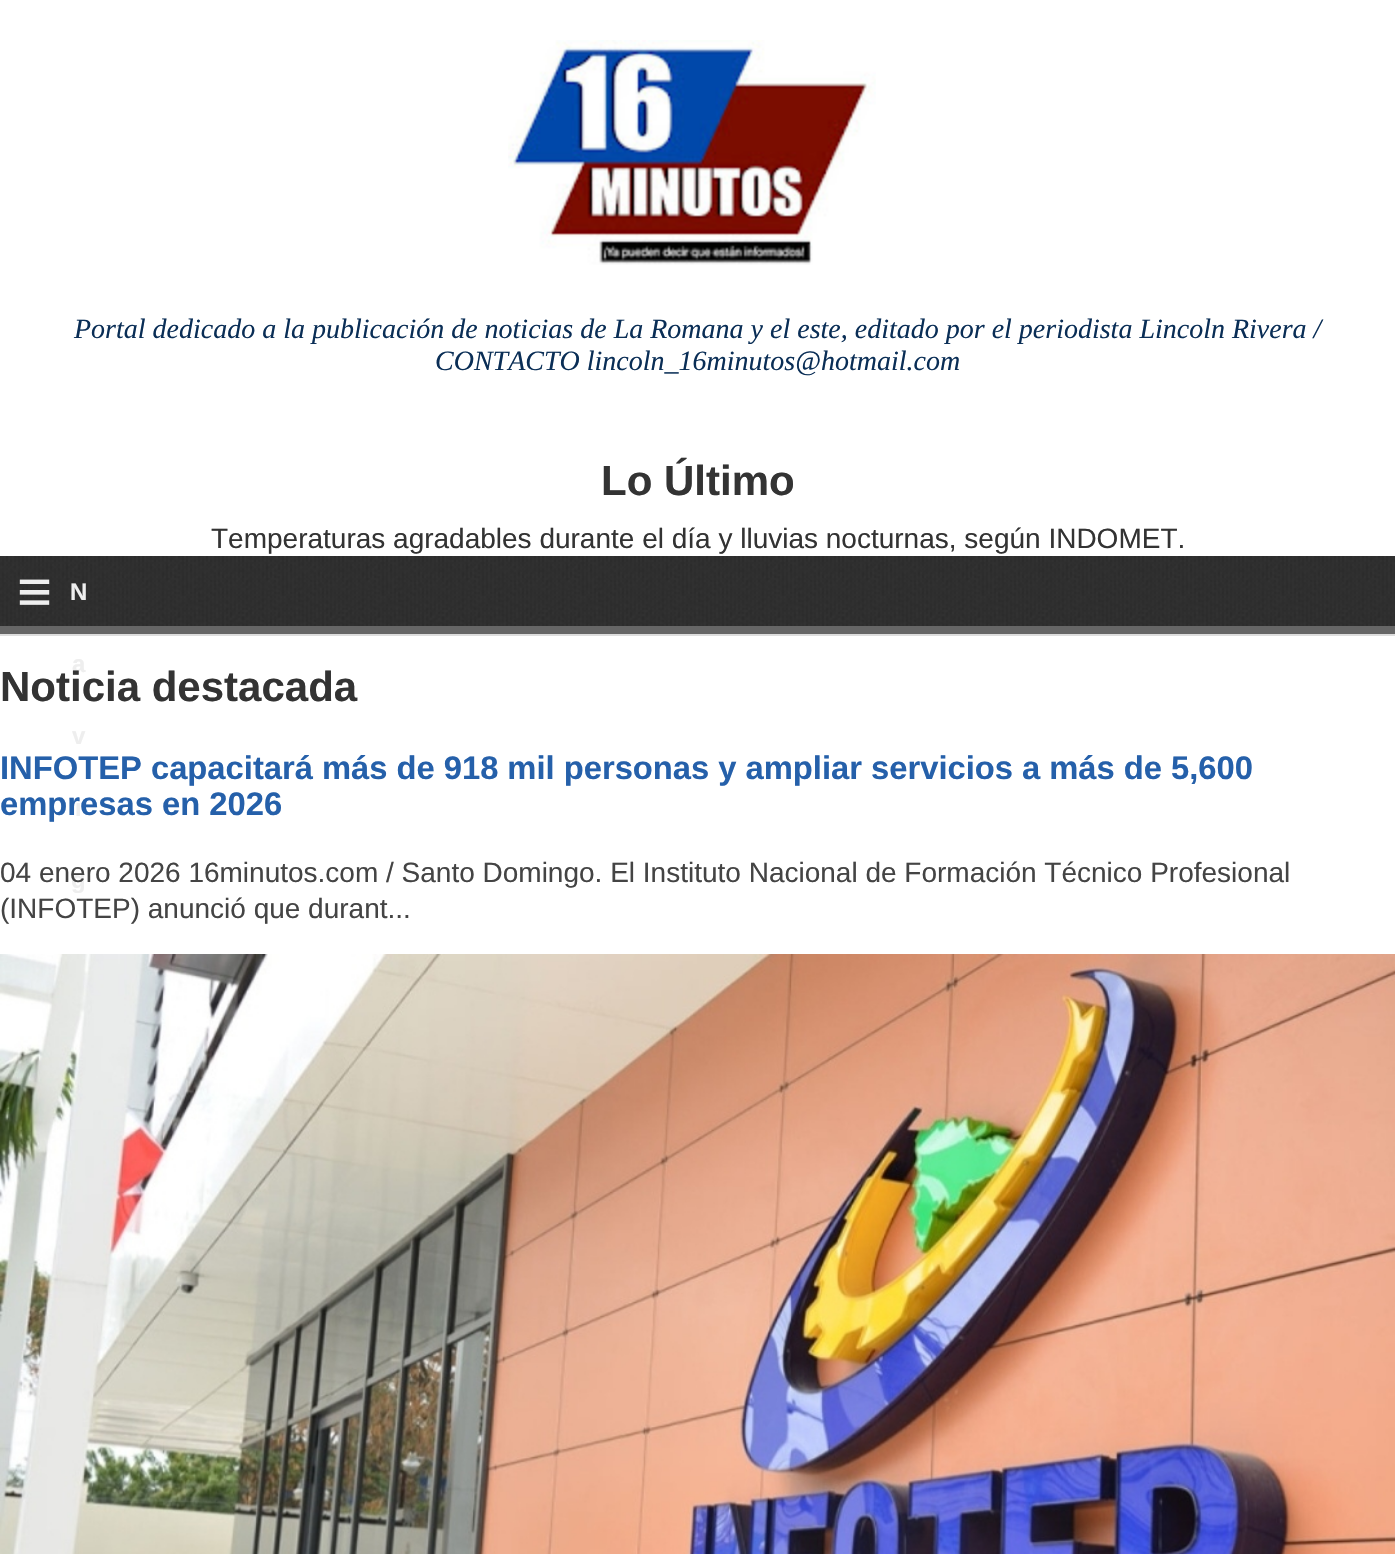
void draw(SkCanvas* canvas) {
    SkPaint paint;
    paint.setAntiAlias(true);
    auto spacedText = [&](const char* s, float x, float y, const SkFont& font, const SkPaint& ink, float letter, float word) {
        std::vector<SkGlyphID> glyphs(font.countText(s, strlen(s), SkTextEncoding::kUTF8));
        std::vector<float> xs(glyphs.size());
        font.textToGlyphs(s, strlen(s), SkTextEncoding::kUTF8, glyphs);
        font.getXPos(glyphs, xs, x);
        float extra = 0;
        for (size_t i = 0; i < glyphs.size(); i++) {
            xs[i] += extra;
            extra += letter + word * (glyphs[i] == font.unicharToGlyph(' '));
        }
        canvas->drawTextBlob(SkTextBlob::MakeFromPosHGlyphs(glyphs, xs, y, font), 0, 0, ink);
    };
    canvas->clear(0xFFFFFFFF);
    canvas->drawImageRect(SkImages::DeferredFromEncodedData(SkData::MakeFromFileName("img1.png")), SkRect::MakeXYWH(508, 40, 368, 225), SkSamplingOptions());
    SkFont font1(fontMgr->matchFamilyStyle("Liberation Serif", SkFontStyle::Italic()), 28);
    font1.setSubpixel(true);
    paint.setColor(0xFF0A2E56);
    canvas->drawString("Portal dedicado a la publicación de noticias de La Romana y el este, editado por el periodista Lincoln Rivera /", 74, 338, font1, paint);
    canvas->drawString("CONTACTO lincoln_16minutos@hotmail.com", 435, 370, font1, paint);
    SkFont font2(fontMgr->matchFamilyStyle("Liberation Sans", SkFontStyle::Bold()), 42);
    font2.setSubpixel(true);
    paint.setColor(0xFF333333);
    canvas->drawString("Lo Último", 601, 495, font2, paint);
    SkFont font3(fontMgr->matchFamilyStyle("Liberation Sans", SkFontStyle::Normal()), 28);
    font3.setSubpixel(true);
    canvas->drawString("Temperaturas agradables durante el día y lluvias nocturnas, según INDOMET.", 211, 548, font3, paint);
    canvas->drawImageRect(SkImages::DeferredFromEncodedData(SkData::MakeFromFileName("img2.png")), SkRect::MakeXYWH(0, 556, 1395, 70), SkSamplingOptions());
    paint.setColor(0xFF666666);
    canvas->drawRect(SkRect::MakeXYWH(0, 626, 1395, 8), paint);
    SkFont font4(fontMgr->matchFamilyStyle("Liberation Sans", SkFontStyle::Bold()), 60);
    font4.setSubpixel(true);
    paint.setColor(0xFFEEEEEE);
    canvas->drawString("≡", 17, 612, font4, paint);
    SkFont font5(fontMgr->matchFamilyStyle("Liberation Sans", SkFontStyle::Bold()), 24);
    font5.setSubpixel(true);
    canvas->drawString("N", 70, 600, font5, paint);
    canvas->drawString("a", 72, 672, font5, paint);
    canvas->drawString("v", 72, 744, font5, paint);
    canvas->drawString("i", 75, 816, font5, paint);
    canvas->drawString("g", 71, 888, font5, paint);
    paint.setColor(0xFFDDDDDD);
    canvas->drawRect(SkRect::MakeXYWH(0, 634, 1395, 2), paint);
    paint.setColor(0xFF333333);
    canvas->drawString("Noticia destacada", 0, 701, font2, paint);
    SkFont font6(fontMgr->matchFamilyStyle("Liberation Sans", SkFontStyle::Bold()), 32.75f);
    font6.setSubpixel(true);
    paint.setColor(0xFF2560AA);
    spacedText("INFOTEP capacitará más de 918 mil personas y ampliar servicios a más de 5,600", 0, 779, font6, paint, 0, -0.1f);
    canvas->drawString("empresas en 2026", 0, 815, font6, paint);
    paint.setColor(0xFF444444);
    canvas->drawString("04 enero 2026 16minutos.com / Santo Domingo. El Instituto Nacional de Formación Técnico Profesional", 0, 882, font3, paint);
    canvas->drawString("(INFOTEP) anunció que durant...", 0, 918, font3, paint);
    canvas->drawImageRect(SkImages::DeferredFromEncodedData(SkData::MakeFromFileName("img3.png")), SkRect::MakeXYWH(0, 954, 1395, 600), SkSamplingOptions());
}
